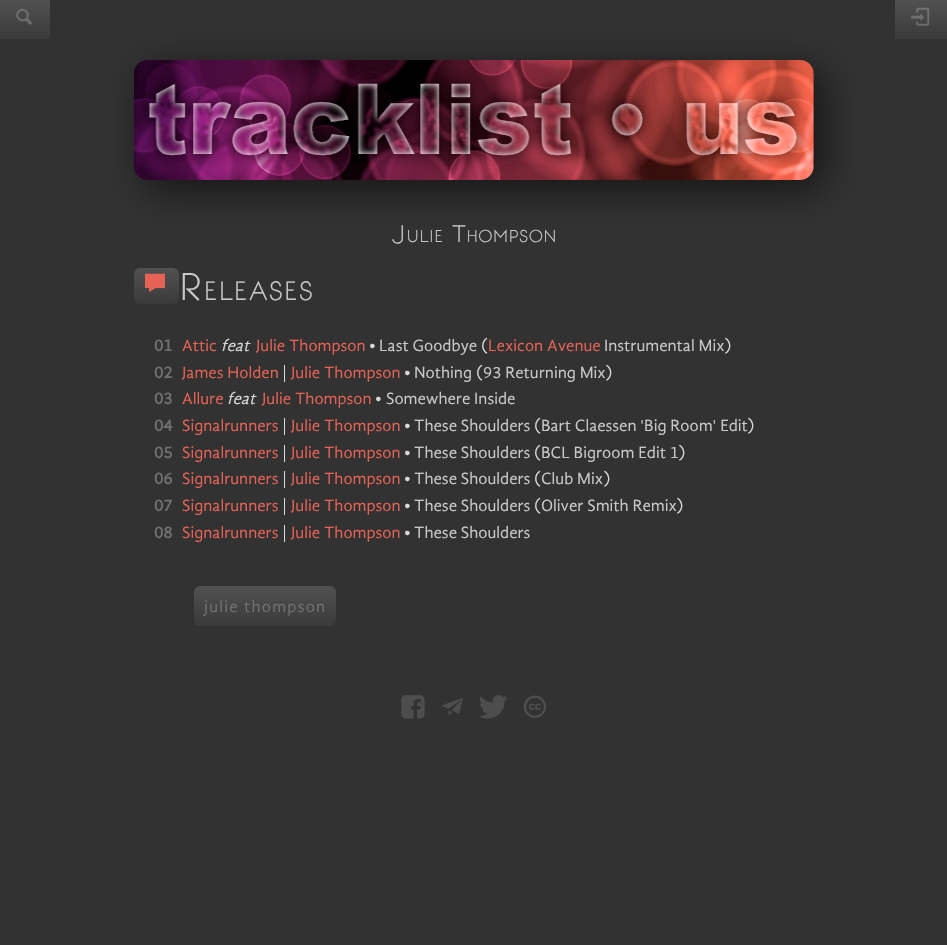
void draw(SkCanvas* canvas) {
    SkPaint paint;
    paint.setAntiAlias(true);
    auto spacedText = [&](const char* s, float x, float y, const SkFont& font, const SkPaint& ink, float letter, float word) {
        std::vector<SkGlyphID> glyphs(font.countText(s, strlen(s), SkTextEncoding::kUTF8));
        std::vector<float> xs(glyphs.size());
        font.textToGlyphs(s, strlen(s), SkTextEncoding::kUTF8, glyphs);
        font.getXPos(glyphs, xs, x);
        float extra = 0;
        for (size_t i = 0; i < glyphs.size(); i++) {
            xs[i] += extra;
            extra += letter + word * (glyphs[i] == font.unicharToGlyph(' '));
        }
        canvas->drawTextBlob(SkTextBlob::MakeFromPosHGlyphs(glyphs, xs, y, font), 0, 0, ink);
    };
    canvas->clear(0xFF323232);
    {
        const SkColor colors[] = {0xFF515151, 0xFF3A3A3A};
        const float stops[] = {0, 1};
        const SkPoint ends[] = {{25, 0}, {25, 39}};
        paint.setShader(SkGradientShader::MakeLinear(ends, colors, stops, 2, SkTileMode::kClamp));
        paint.setAlpha(255);
    }
    canvas->drawRect(SkRect::MakeXYWH(0, 0, 50, 39), paint);
    canvas->drawImageRect(SkImages::DeferredFromEncodedData(SkData::MakeFromFileName("img1.png")), SkRect::MakeXYWH(16, 8, 16, 17), SkSamplingOptions());
    {
        const SkColor colors[] = {0xFF515151, 0xFF3A3A3A};
        const float stops[] = {0, 1};
        const SkPoint ends[] = {{921, 0}, {921, 39}};
        paint.setShader(SkGradientShader::MakeLinear(ends, colors, stops, 2, SkTileMode::kClamp));
        paint.setAlpha(255);
    }
    canvas->drawRect(SkRect::MakeXYWH(895, 0, 52, 39), paint);
    canvas->drawImageRect(SkImages::DeferredFromEncodedData(SkData::MakeFromFileName("img2.png")), SkRect::MakeXYWH(911, 7, 19, 19), SkSamplingOptions());
    paint.setShader(nullptr);
    paint.setColor(0xFF141414);
    paint.setMaskFilter(SkMaskFilter::MakeBlur(kNormal_SkBlurStyle, 20));
    canvas->drawRoundRect(SkRect::MakeXYWH(144, 70, 680, 120), 14, 14, paint);
    paint.setMaskFilter(nullptr);
    canvas->drawImageRect(SkImages::DeferredFromEncodedData(SkData::MakeFromFileName("img3.png")), SkRect::MakeXYWH(134, 60, 680, 120), SkSamplingOptions());
    SkFont font1(fontMgr->matchFamilyStyle("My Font", SkFontStyle::Normal()), 23);
    font1.setSubpixel(true);
    paint.setColor(0xFFC8C8C8);
    canvas->drawString("J", 392, 242, font1, paint);
    SkFont font2(fontMgr->matchFamilyStyle("My Font", SkFontStyle::Normal()), 16.5f);
    font2.setSubpixel(true);
    canvas->drawString("ULIE", 406, 242, font2, paint);
    canvas->drawString("T", 452, 242, font1, paint);
    canvas->drawString("HOMPSON", 466, 242, font2, paint);
    {
        const SkColor colors[] = {0xFF515151, 0xFF3A3A3A};
        const float stops[] = {0, 1};
        const SkPoint ends[] = {{156, 268}, {156, 304}};
        paint.setShader(SkGradientShader::MakeLinear(ends, colors, stops, 2, SkTileMode::kClamp));
        paint.setAlpha(255);
    }
    canvas->drawRoundRect(SkRect::MakeXYWH(134, 268, 45, 36), 6, 6, paint);
    canvas->drawImageRect(SkImages::DeferredFromEncodedData(SkData::MakeFromFileName("img4.png")), SkRect::MakeXYWH(145, 273, 20, 19), SkSamplingOptions());
    SkFont font3(fontMgr->matchFamilyStyle("My Font", SkFontStyle::Normal()), 37);
    font3.setSubpixel(true);
    paint.setShader(nullptr);
    paint.setColor(0xFFC8C8C8);
    canvas->drawString("R", 178, 300, font3, paint);
    SkFont font4(fontMgr->matchFamilyStyle("My Font", SkFontStyle::Normal()), 25.5f);
    font4.setSubpixel(true);
    canvas->drawString("ELEASES", 203, 300, font4, paint);
    SkFont font5(fontMgr->matchFamilyStyle("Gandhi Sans", SkFontStyle::Bold()), 16.75f);
    font5.setSubpixel(true);
    paint.setColor(0xFF707070);
    canvas->drawString("01", 154, 351, font5, paint);
    SkFont font6(fontMgr->matchFamilyStyle("Gandhi Sans", SkFontStyle::Normal()), 16.75f);
    font6.setSubpixel(true);
    paint.setColor(0xFFE56255);
    canvas->drawString("Attic", 182, 351, font6, paint);
    SkFont font7(fontMgr->matchFamilyStyle("Gandhi Sans", SkFontStyle::Italic()), 16.75f);
    font7.setSubpixel(true);
    paint.setColor(0xFFD9D9D9);
    canvas->drawString("feat", 221, 351, font7, paint);
    paint.setColor(0xFFE56255);
    canvas->drawString("Julie Thompson", 256, 351, font6, paint);
    paint.setColor(0xFFD9D9D9);
    canvas->drawString("•", 369, 351, font6, paint);
    paint.setColor(0xFFC8C8C8);
    canvas->drawString("Last Goodbye", 379, 351, font6, paint);
    paint.setColor(0xFFD9D9D9);
    canvas->drawString("(", 481, 351, font6, paint);
    paint.setColor(0xFFE56255);
    canvas->drawString("Lexicon Avenue", 488, 351, font6, paint);
    paint.setColor(0xFFC8C8C8);
    canvas->drawString("Instrumental Mix", 604, 351, font6, paint);
    paint.setColor(0xFFD9D9D9);
    canvas->drawString(")", 724, 351, font6, paint);
    paint.setColor(0xFF707070);
    canvas->drawString("02", 154, 378, font5, paint);
    paint.setColor(0xFFE56255);
    canvas->drawString("James Holden", 182, 378, font6, paint);
    paint.setColor(0xFFD9D9D9);
    canvas->drawString("|", 282, 378, font6, paint);
    paint.setColor(0xFFE56255);
    canvas->drawString("Julie Thompson", 291, 378, font6, paint);
    paint.setColor(0xFFD9D9D9);
    canvas->drawString("•", 404, 378, font6, paint);
    paint.setColor(0xFFC8C8C8);
    canvas->drawString("Nothing", 414, 378, font6, paint);
    paint.setColor(0xFFD9D9D9);
    canvas->drawString("(", 476, 378, font6, paint);
    paint.setColor(0xFFC8C8C8);
    canvas->drawString("93 Returning Mix", 483, 378, font6, paint);
    paint.setColor(0xFFD9D9D9);
    canvas->drawString(")", 605, 378, font6, paint);
    paint.setColor(0xFF707070);
    canvas->drawString("03", 154, 404, font5, paint);
    paint.setColor(0xFFE56255);
    canvas->drawString("Allure", 182, 404, font6, paint);
    paint.setColor(0xFFD9D9D9);
    canvas->drawString("feat", 227, 404, font7, paint);
    paint.setColor(0xFFE56255);
    canvas->drawString("Julie Thompson", 262, 404, font6, paint);
    paint.setColor(0xFFD9D9D9);
    canvas->drawString("•", 375, 404, font6, paint);
    paint.setColor(0xFFC8C8C8);
    canvas->drawString("Somewhere Inside", 386, 404, font6, paint);
    paint.setColor(0xFF707070);
    canvas->drawString("04", 154, 431, font5, paint);
    paint.setColor(0xFFE56255);
    canvas->drawString("Signalrunners", 182, 431, font6, paint);
    paint.setColor(0xFFD9D9D9);
    canvas->drawString("|", 282, 431, font6, paint);
    paint.setColor(0xFFE56255);
    canvas->drawString("Julie Thompson", 291, 431, font6, paint);
    paint.setColor(0xFFD9D9D9);
    canvas->drawString("•", 404, 431, font6, paint);
    paint.setColor(0xFFC8C8C8);
    canvas->drawString("These Shoulders", 414, 431, font6, paint);
    paint.setColor(0xFFD9D9D9);
    canvas->drawString("(", 534, 431, font6, paint);
    paint.setColor(0xFFC8C8C8);
    canvas->drawString("Bart Claessen 'Big Room' Edit", 541, 431, font6, paint);
    paint.setColor(0xFFD9D9D9);
    canvas->drawString(")", 747, 431, font6, paint);
    paint.setColor(0xFF707070);
    canvas->drawString("05", 154, 458, font5, paint);
    paint.setColor(0xFFE56255);
    canvas->drawString("Signalrunners", 182, 458, font6, paint);
    paint.setColor(0xFFD9D9D9);
    canvas->drawString("|", 282, 458, font6, paint);
    paint.setColor(0xFFE56255);
    canvas->drawString("Julie Thompson", 291, 458, font6, paint);
    paint.setColor(0xFFD9D9D9);
    canvas->drawString("•", 404, 458, font6, paint);
    paint.setColor(0xFFC8C8C8);
    canvas->drawString("These Shoulders", 414, 458, font6, paint);
    paint.setColor(0xFFD9D9D9);
    canvas->drawString("(", 534, 458, font6, paint);
    paint.setColor(0xFFC8C8C8);
    canvas->drawString("BCL Bigroom Edit 1", 541, 458, font6, paint);
    paint.setColor(0xFFD9D9D9);
    canvas->drawString(")", 678, 458, font6, paint);
    paint.setColor(0xFF707070);
    canvas->drawString("06", 154, 484, font5, paint);
    paint.setColor(0xFFE56255);
    canvas->drawString("Signalrunners", 182, 484, font6, paint);
    paint.setColor(0xFFD9D9D9);
    canvas->drawString("|", 282, 484, font6, paint);
    paint.setColor(0xFFE56255);
    canvas->drawString("Julie Thompson", 291, 484, font6, paint);
    paint.setColor(0xFFD9D9D9);
    canvas->drawString("•", 404, 484, font6, paint);
    paint.setColor(0xFFC8C8C8);
    canvas->drawString("These Shoulders", 414, 484, font6, paint);
    paint.setColor(0xFFD9D9D9);
    canvas->drawString("(", 534, 484, font6, paint);
    paint.setColor(0xFFC8C8C8);
    canvas->drawString("Club Mix", 541, 484, font6, paint);
    paint.setColor(0xFFD9D9D9);
    canvas->drawString(")", 603, 484, font6, paint);
    paint.setColor(0xFF707070);
    canvas->drawString("07", 154, 511, font5, paint);
    paint.setColor(0xFFE56255);
    canvas->drawString("Signalrunners", 182, 511, font6, paint);
    paint.setColor(0xFFD9D9D9);
    canvas->drawString("|", 282, 511, font6, paint);
    paint.setColor(0xFFE56255);
    canvas->drawString("Julie Thompson", 291, 511, font6, paint);
    paint.setColor(0xFFD9D9D9);
    canvas->drawString("•", 404, 511, font6, paint);
    paint.setColor(0xFFC8C8C8);
    canvas->drawString("These Shoulders", 414, 511, font6, paint);
    paint.setColor(0xFFD9D9D9);
    canvas->drawString("(", 534, 511, font6, paint);
    paint.setColor(0xFFC8C8C8);
    canvas->drawString("Oliver Smith Remix", 541, 511, font6, paint);
    paint.setColor(0xFFD9D9D9);
    canvas->drawString(")", 676, 511, font6, paint);
    paint.setColor(0xFF707070);
    canvas->drawString("08", 154, 538, font5, paint);
    paint.setColor(0xFFE56255);
    canvas->drawString("Signalrunners", 182, 538, font6, paint);
    paint.setColor(0xFFD9D9D9);
    canvas->drawString("|", 282, 538, font6, paint);
    paint.setColor(0xFFE56255);
    canvas->drawString("Julie Thompson", 291, 538, font6, paint);
    paint.setColor(0xFFD9D9D9);
    canvas->drawString("•", 404, 538, font6, paint);
    paint.setColor(0xFFC8C8C8);
    canvas->drawString("These Shoulders", 414, 538, font6, paint);
    {
        const SkColor colors[] = {0xFF515151, 0xFF3A3A3A};
        const float stops[] = {0, 1};
        const SkPoint ends[] = {{265, 586}, {265, 626}};
        paint.setShader(SkGradientShader::MakeLinear(ends, colors, stops, 2, SkTileMode::kClamp));
        paint.setAlpha(255);
    }
    canvas->drawRoundRect(SkRect::MakeXYWH(194, 586, 142, 40), 6, 6, paint);
    paint.setShader(nullptr);
    paint.setColor(0xFF707070);
    spacedText("julie thompson", 204, 612, font6, paint, 1.25f, 0);
    canvas->drawImageRect(SkImages::DeferredFromEncodedData(SkData::MakeFromFileName("img5.png")), SkRect::MakeXYWH(401, 695, 24, 24), SkSamplingOptions());
    canvas->drawImageRect(SkImages::DeferredFromEncodedData(SkData::MakeFromFileName("img6.png")), SkRect::MakeXYWH(441, 698, 22, 18), SkSamplingOptions());
    canvas->drawImageRect(SkImages::DeferredFromEncodedData(SkData::MakeFromFileName("img7.png")), SkRect::MakeXYWH(479, 695, 28, 24), SkSamplingOptions());
    canvas->drawImageRect(SkImages::DeferredFromEncodedData(SkData::MakeFromFileName("img8.png")), SkRect::MakeXYWH(523, 695, 23, 23), SkSamplingOptions());
}
